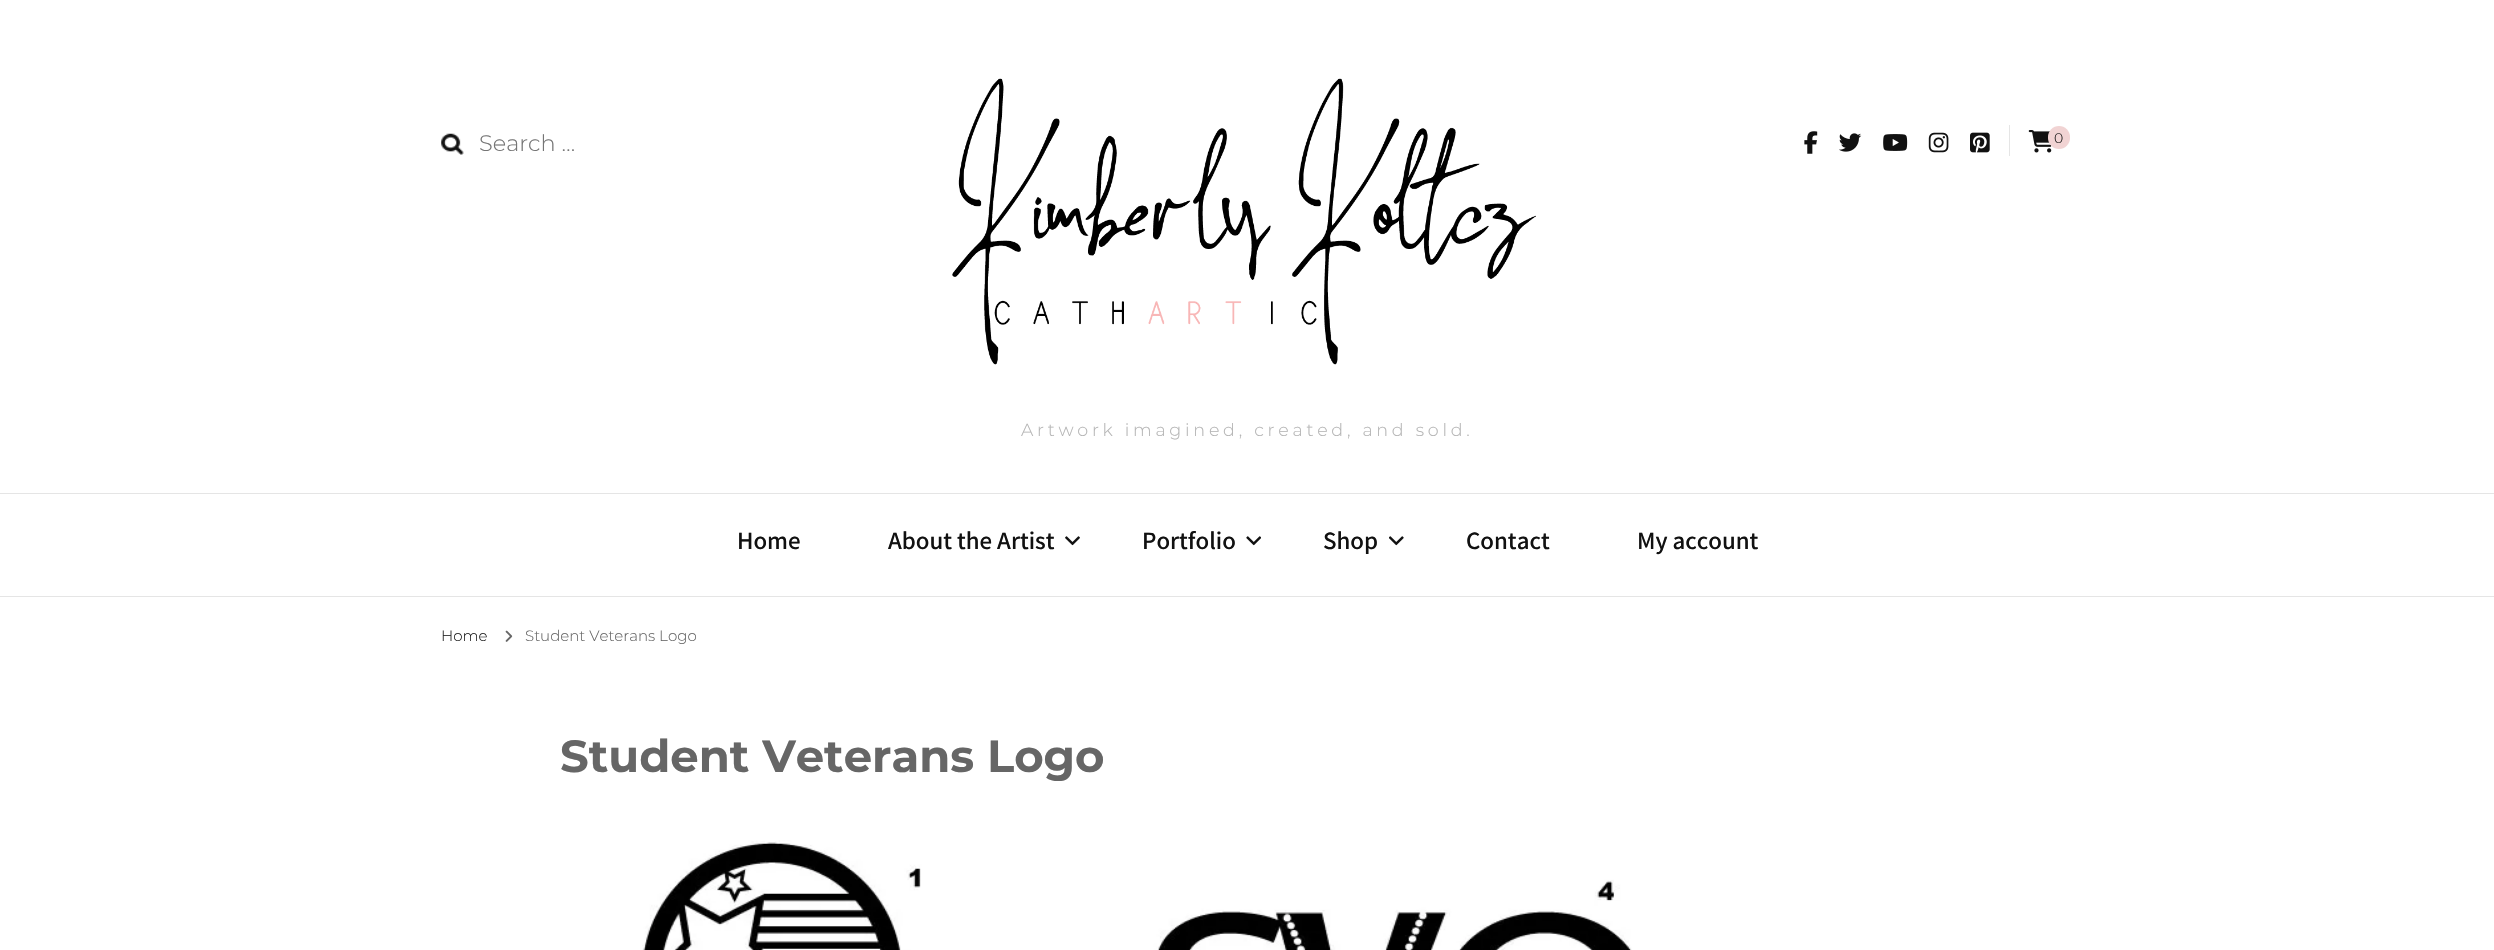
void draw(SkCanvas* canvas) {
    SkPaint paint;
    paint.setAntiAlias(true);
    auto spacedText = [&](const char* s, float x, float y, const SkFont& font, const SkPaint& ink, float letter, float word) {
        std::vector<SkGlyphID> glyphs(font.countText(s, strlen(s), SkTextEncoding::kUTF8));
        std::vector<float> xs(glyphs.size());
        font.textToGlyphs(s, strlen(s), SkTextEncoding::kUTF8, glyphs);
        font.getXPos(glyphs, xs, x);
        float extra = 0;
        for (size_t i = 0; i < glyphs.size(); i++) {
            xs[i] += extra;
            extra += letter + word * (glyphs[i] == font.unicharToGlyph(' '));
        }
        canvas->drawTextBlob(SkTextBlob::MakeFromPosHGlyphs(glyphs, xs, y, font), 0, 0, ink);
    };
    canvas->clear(0xFFFFFFFF);
    canvas->drawImageRect(SkImages::DeferredFromEncodedData(SkData::MakeFromFileName("img1.png")), SkRect::MakeXYWH(441, 133, 23, 22), SkSamplingOptions());
    SkFont font1(fontMgr->matchFamilyStyle("Montserrat", SkFontStyle(300, SkFontStyle::kNormal_Width, SkFontStyle::kUpright_Slant)), 22.5f);
    font1.setSubpixel(true);
    paint.setColor(0xFF757575);
    canvas->drawString("Search …", 479, 151, font1, paint);
    canvas->drawImageRect(SkImages::DeferredFromEncodedData(SkData::MakeFromFileName("img2.png")), SkRect::MakeXYWH(1804, 131, 14, 23), SkSamplingOptions());
    canvas->drawImageRect(SkImages::DeferredFromEncodedData(SkData::MakeFromFileName("img3.png")), SkRect::MakeXYWH(1839, 133, 23, 19), SkSamplingOptions());
    canvas->drawImageRect(SkImages::DeferredFromEncodedData(SkData::MakeFromFileName("img4.png")), SkRect::MakeXYWH(1883, 134, 25, 17), SkSamplingOptions());
    canvas->drawImageRect(SkImages::DeferredFromEncodedData(SkData::MakeFromFileName("img5.png")), SkRect::MakeXYWH(1928, 132, 21, 21), SkSamplingOptions());
    canvas->drawImageRect(SkImages::DeferredFromEncodedData(SkData::MakeFromFileName("img6.png")), SkRect::MakeXYWH(1970, 132, 20, 21), SkSamplingOptions());
    paint.setColor(0xFFE5E5E5);
    canvas->drawRect(SkRect::MakeXYWH(2009, 125, 1, 31), paint);
    canvas->drawImageRect(SkImages::DeferredFromEncodedData(SkData::MakeFromFileName("img7.png")), SkRect::MakeXYWH(2028, 130, 24, 23), SkSamplingOptions());
    paint.setColor(0xFFF1D3D3);
    canvas->drawRoundRect(SkRect::MakeXYWH(2048, 126, 22, 23), 11, 11, paint);
    SkFont font2(fontMgr->matchFamilyStyle("Montserrat", SkFontStyle(300, SkFontStyle::kNormal_Width, SkFontStyle::kUpright_Slant)), 14);
    font2.setSubpixel(true);
    paint.setColor(0xFF111111);
    canvas->drawString("0", 2054, 143, font2, paint);
    canvas->drawImageRect(SkImages::DeferredFromEncodedData(SkData::MakeFromFileName("img8.png")), SkRect::MakeXYWH(952, 78, 584, 287), SkSamplingOptions());
    SkFont font3(fontMgr->matchFamilyStyle("Montserrat", SkFontStyle(300, SkFontStyle::kNormal_Width, SkFontStyle::kUpright_Slant)), 17.5f);
    font3.setSubpixel(true);
    paint.setColor(0xFFB5B5B5);
    spacedText("Artwork imagined, created, and sold.", 1021, 436, font3, paint, 3.75f, 0);
    paint.setColor(0xFFE5E5E5);
    canvas->drawRect(SkRect::MakeXYWH(0, 493, 2494, 1), paint);
    canvas->drawRect(SkRect::MakeXYWH(0, 596, 2494, 1), paint);
    SkFont font4(fontMgr->matchFamilyStyle("Assistant", SkFontStyle(600, SkFontStyle::kNormal_Width, SkFontStyle::kUpright_Slant)), 25);
    font4.setSubpixel(true);
    paint.setColor(0xFF111111);
    canvas->drawString("Home", 737, 549, font4, paint);
    canvas->drawString("About the Artist", 888, 549, font4, paint);
    canvas->drawImageRect(SkImages::DeferredFromEncodedData(SkData::MakeFromFileName("img9.png")), SkRect::MakeXYWH(1065, 536, 15, 10), SkSamplingOptions());
    canvas->drawString("Portfolio", 1142, 549, font4, paint);
    canvas->drawImageRect(SkImages::DeferredFromEncodedData(SkData::MakeFromFileName("img10.png")), SkRect::MakeXYWH(1246, 536, 15, 10), SkSamplingOptions());
    canvas->drawString("Shop", 1323, 549, font4, paint);
    canvas->drawImageRect(SkImages::DeferredFromEncodedData(SkData::MakeFromFileName("img11.png")), SkRect::MakeXYWH(1389, 536, 15, 10), SkSamplingOptions());
    canvas->drawString("Contact", 1466, 549, font4, paint);
    canvas->drawString("My account", 1637, 549, font4, paint);
    SkFont font5(fontMgr->matchFamilyStyle("Montserrat", SkFontStyle(300, SkFontStyle::kNormal_Width, SkFontStyle::kUpright_Slant)), 15);
    font5.setSubpixel(true);
    paint.setColor(0xFF222222);
    canvas->drawString("Home", 441, 641, font5, paint);
    canvas->drawImageRect(SkImages::DeferredFromEncodedData(SkData::MakeFromFileName("img12.png")), SkRect::MakeXYWH(505, 630, 8, 12), SkSamplingOptions());
    paint.setColor(0xFF666666);
    canvas->drawString("Student Veterans Logo", 525, 641, font5, paint);
    SkFont font6(fontMgr->matchFamilyStyle("Montserrat", SkFontStyle::Bold()), 45);
    font6.setSubpixel(true);
    canvas->drawString("Student Veterans Logo", 560, 772, font6, paint);
    canvas->drawImageRect(SkImages::DeferredFromEncodedData(SkData::MakeFromFileName("img13.png")), SkRect::MakeXYWH(642, 840, 990, 110), SkSamplingOptions());
}
